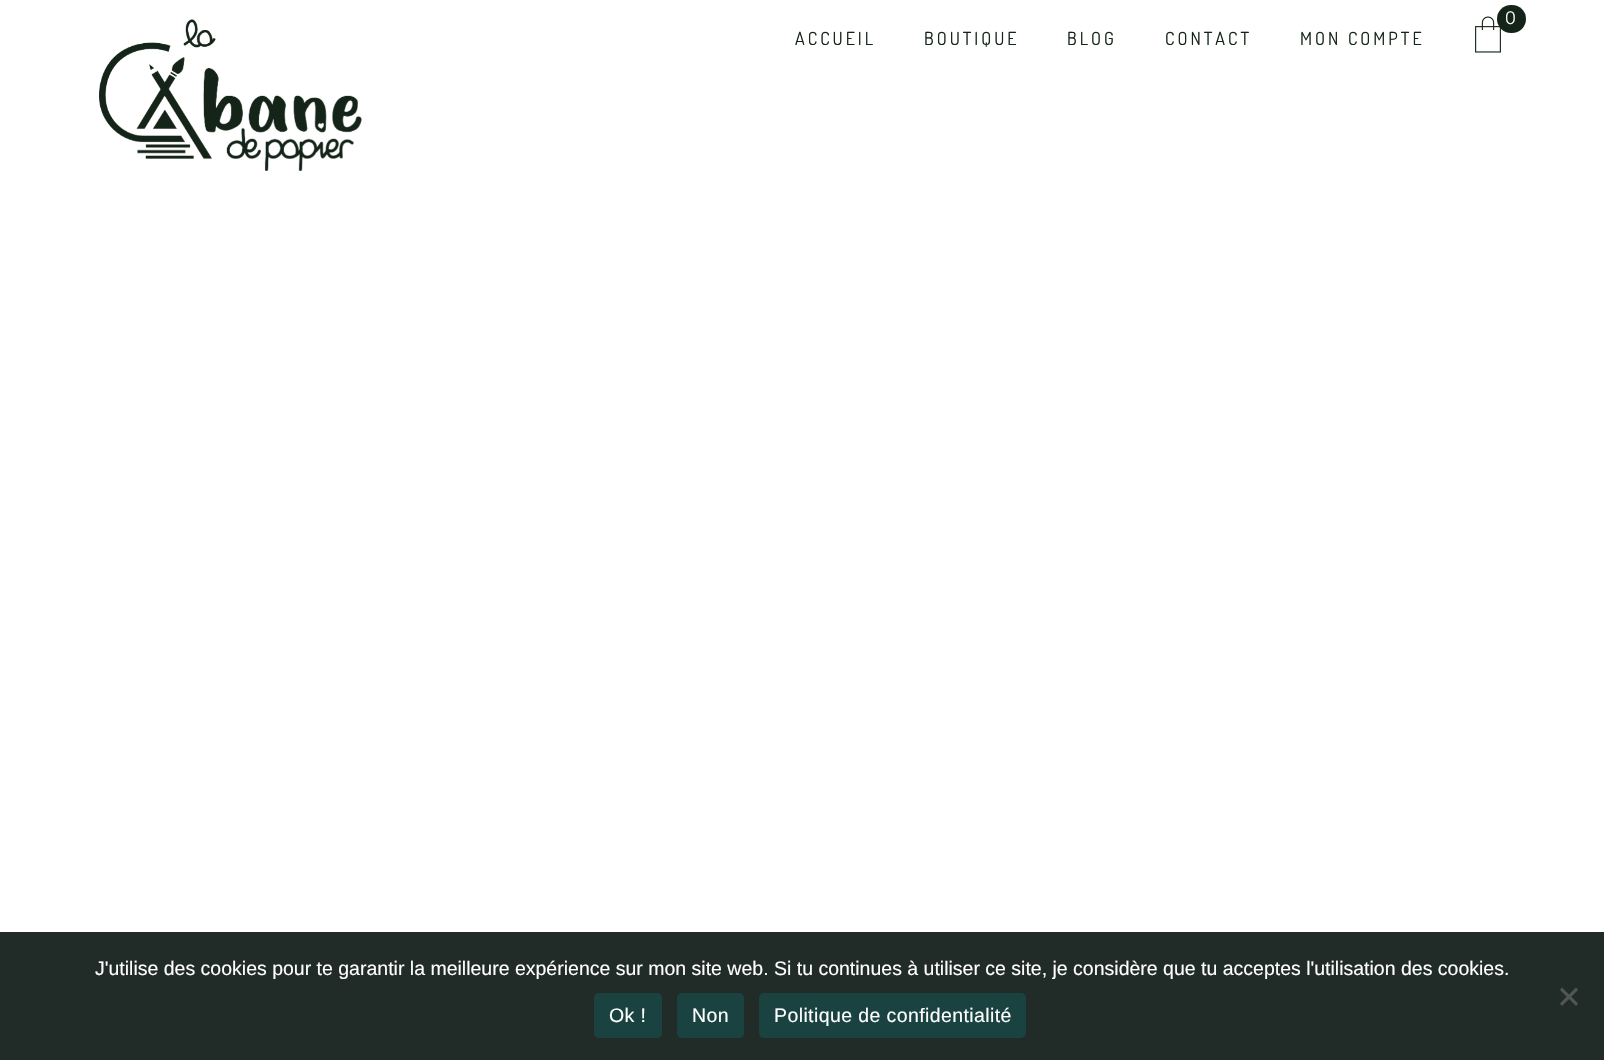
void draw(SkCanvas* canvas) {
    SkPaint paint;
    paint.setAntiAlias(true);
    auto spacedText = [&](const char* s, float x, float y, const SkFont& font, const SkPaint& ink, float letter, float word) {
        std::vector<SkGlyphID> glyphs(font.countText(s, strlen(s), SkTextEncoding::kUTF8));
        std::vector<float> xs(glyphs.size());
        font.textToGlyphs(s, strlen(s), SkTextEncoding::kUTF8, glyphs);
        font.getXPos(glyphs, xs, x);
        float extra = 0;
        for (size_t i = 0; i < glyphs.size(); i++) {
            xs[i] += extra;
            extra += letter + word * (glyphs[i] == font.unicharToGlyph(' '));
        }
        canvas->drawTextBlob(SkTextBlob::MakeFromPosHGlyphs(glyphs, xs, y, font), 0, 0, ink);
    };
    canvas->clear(0xFFFFFFFF);
    canvas->drawImageRect(SkImages::DeferredFromEncodedData(SkData::MakeFromFileName("img1.png")), SkRect::MakeXYWH(99, 19, 263, 152), SkSamplingOptions());
    SkFont font1(fontMgr->matchFamilyStyle("Dosis", SkFontStyle::Normal()), 18);
    font1.setSubpixel(true);
    paint.setColor(0xFF152418);
    spacedText("ACCUEIL", 795, 45, font1, paint, 3, 0);
    spacedText("BOUTIQUE", 924, 45, font1, paint, 3, 0);
    spacedText("BLOG", 1067, 45, font1, paint, 3, 0);
    spacedText("CONTACT", 1165, 45, font1, paint, 3, 0);
    spacedText("MON COMPTE", 1300, 45, font1, paint, 3, 0);
    canvas->drawImageRect(SkImages::DeferredFromEncodedData(SkData::MakeFromFileName("img2.png")), SkRect::MakeXYWH(1475, 16, 26, 37), SkSamplingOptions());
    canvas->drawRoundRect(SkRect::MakeXYWH(1497, 5, 29, 28), 14, 14, paint);
    SkFont font2(fontMgr->matchFamilyStyle("Mulish", SkFontStyle(200, SkFontStyle::kNormal_Width, SkFontStyle::kUpright_Slant)), 18);
    font2.setSubpixel(true);
    paint.setColor(0xFFFFFFFF);
    canvas->drawString("0", 1505, 24, font2, paint);
    paint.setColor(0xFF212B28);
    canvas->drawRect(SkRect::MakeXYWH(0, 932, 1604, 128), paint);
    SkFont font3(fontMgr->matchFamilyStyle("Liberation Sans", SkFontStyle::Normal()), 19.5f);
    font3.setSubpixel(true);
    paint.setColor(0xFFFFFFFF);
    canvas->drawString("J'utilise des cookies pour te garantir la meilleure expérience sur mon site web. Si tu continues à utiliser ce site, je considère que tu acceptes l'utilisation des cookies.", 95, 975, font3, paint);
    paint.setColor(0xFF515654);
    canvas->drawPath(SkPathBuilder().moveTo(1576, 987.5f).lineTo(1578, 990).lineTo(1562, 1006).lineTo(1560, 1003.5f).close().detach(), paint);
    canvas->drawPath(SkPathBuilder().moveTo(1560, 990).lineTo(1562, 987.5f).lineTo(1578, 1003.5f).lineTo(1576, 1006).close().detach(), paint);
    paint.setColor(0xFF194240);
    canvas->drawRoundRect(SkRect::MakeXYWH(594, 993, 68, 45), 5, 5, paint);
    paint.setColor(0xFFFFFFFF);
    spacedText("Ok !", 609, 1022, font3, paint, 0.4f, 0);
    paint.setColor(0xFF194240);
    canvas->drawRoundRect(SkRect::MakeXYWH(677, 993, 67, 45), 5, 5, paint);
    paint.setColor(0xFFFFFFFF);
    spacedText("Non", 692, 1022, font3, paint, 0.4f, 0);
    paint.setColor(0xFF194240);
    canvas->drawRoundRect(SkRect::MakeXYWH(759, 993, 267, 45), 5, 5, paint);
    paint.setColor(0xFFFFFFFF);
    spacedText("Politique de confidentialité", 774, 1022, font3, paint, 0.4f, 0);
}
